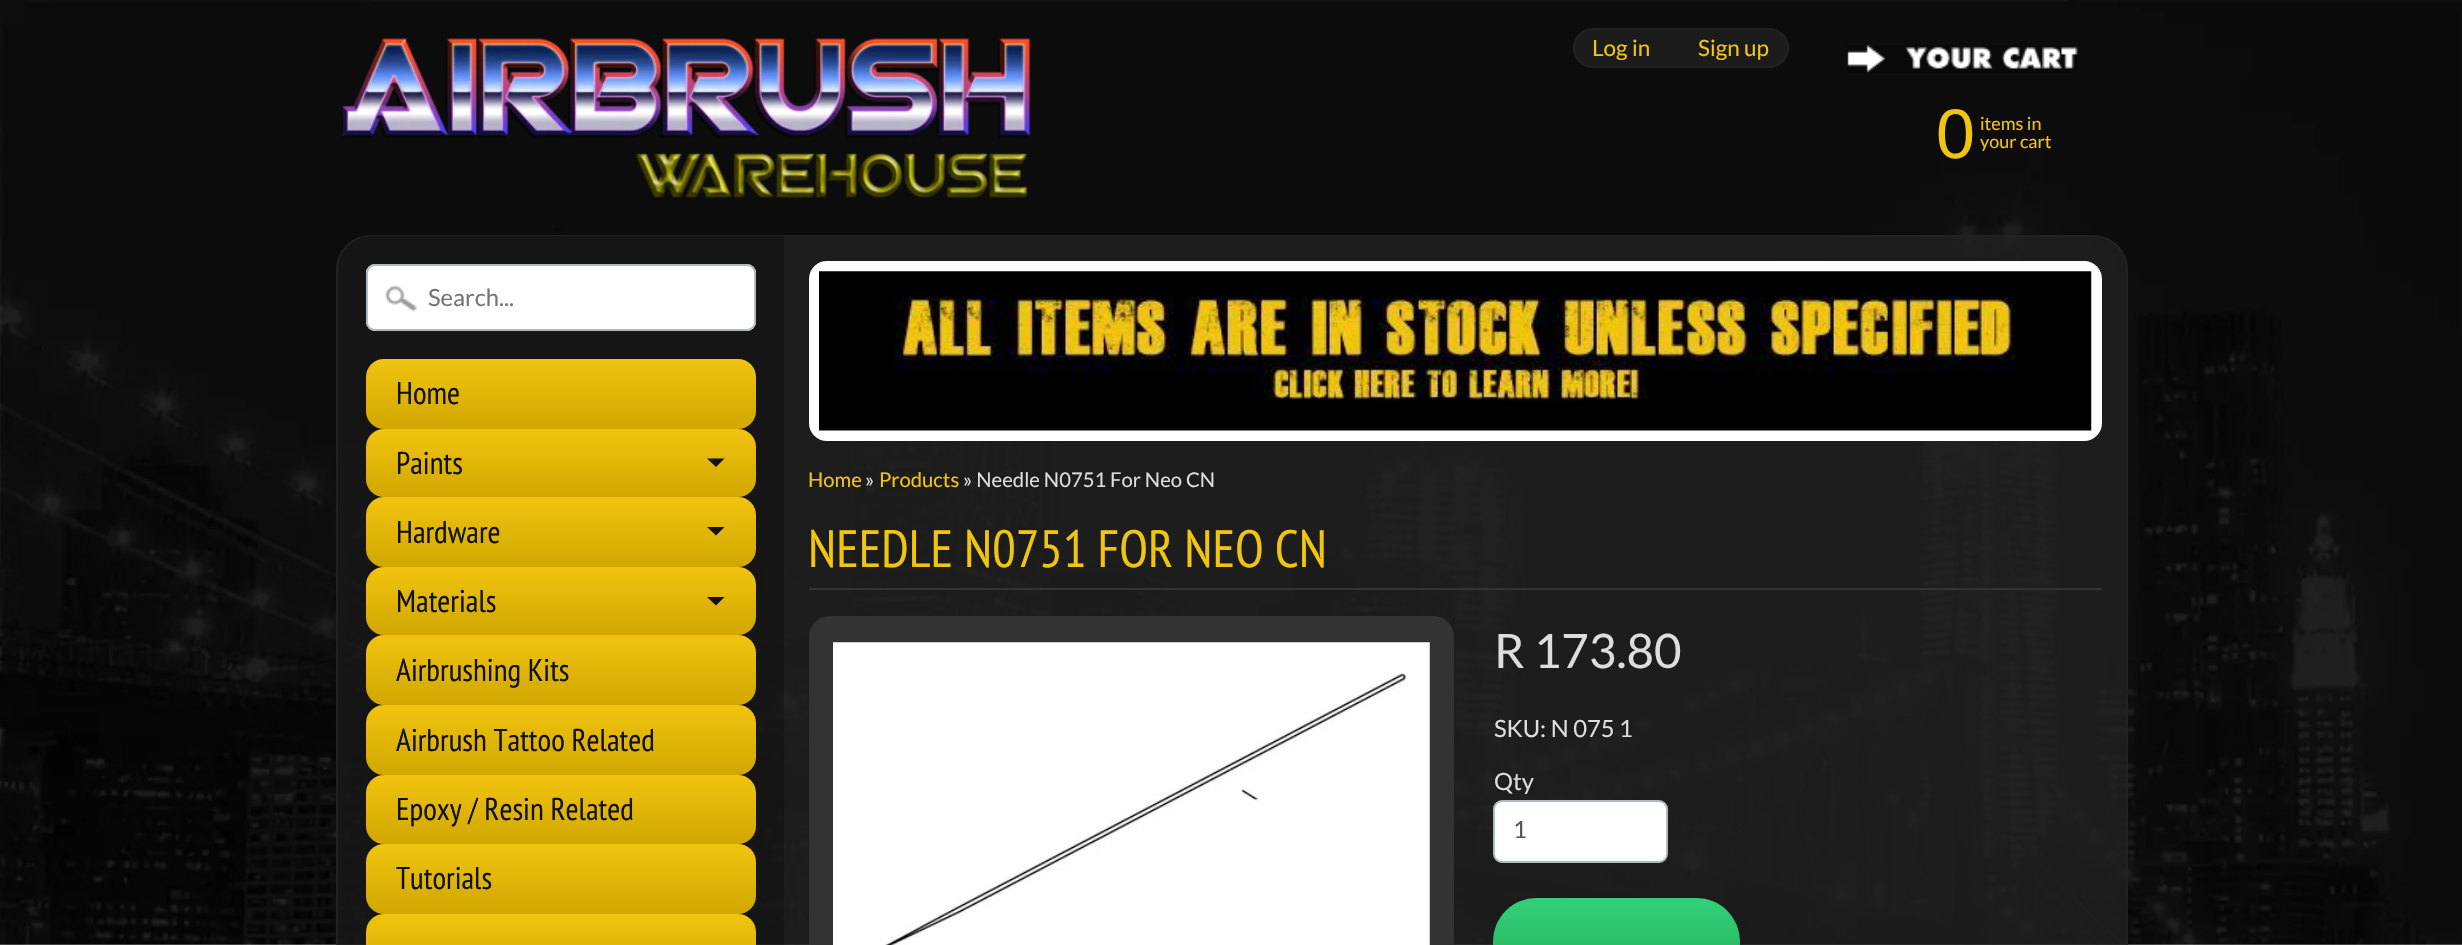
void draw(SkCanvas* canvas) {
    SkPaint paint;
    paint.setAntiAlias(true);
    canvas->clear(0xFFFFFFFF);
    canvas->drawImageRect(SkImages::DeferredFromEncodedData(SkData::MakeFromFileName("img1.png")), SkRect::MakeXYWH(0, 0, 2462, 945), SkSamplingOptions());
    canvas->drawImageRect(SkImages::DeferredFromEncodedData(SkData::MakeFromFileName("img2.png")), SkRect::MakeXYWH(341, 38, 690, 160), SkSamplingOptions());
    paint.setColor(0xFF1B1B1B);
    canvas->drawRoundRect(SkRect::MakeXYWH(1574, 29, 214, 38), 19, 19, paint);
    paint.setStyle(SkPaint::kStroke_Style);
    paint.setStrokeWidth(2);
    paint.setColor(0xFF222222);
    canvas->drawRoundRect(SkRect::MakeXYWH(1574, 29, 214, 38), 19, 19, paint);
    SkFont font1(fontMgr->matchFamilyStyle("Lato", SkFontStyle::Normal()), 22.5f);
    font1.setSubpixel(true);
    paint.setStyle(SkPaint::kFill_Style);
    paint.setColor(0xFFF1C40F);
    canvas->drawString("Log in", 1592, 56, font1, paint);
    canvas->drawString("Sign up", 1698, 56, font1, paint);
    canvas->drawImageRect(SkImages::DeferredFromEncodedData(SkData::MakeFromFileName("img3.png")), SkRect::MakeXYWH(1847, 45, 231, 28), SkSamplingOptions());
    SkFont font2(fontMgr->matchFamilyStyle("Liberation Sans", SkFontStyle::Normal()), 70);
    font2.setSubpixel(true);
    canvas->drawString("0", 1936, 158, font2, paint);
    SkFont font3(fontMgr->matchFamilyStyle("Lato", SkFontStyle::Normal()), 18);
    font3.setSubpixel(true);
    canvas->drawString("items in", 1980, 130, font3, paint);
    canvas->drawString("your cart", 1980, 148, font3, paint);
    paint.setColor(0xBF222222);
    canvas->drawRoundRect(SkRect::MakeXYWH(336, 235, 1792, 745), 35, 35, paint);
    paint.setStyle(SkPaint::kStroke_Style);
    paint.setColor(0xB3222222);
    canvas->drawRoundRect(SkRect::MakeXYWH(337, 236, 1790, 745), 34, 34, paint);
    paint.setStyle(SkPaint::kFill_Style);
    paint.setColor(0x40000000);
    canvas->drawPath(SkPathBuilder().moveTo(371, 236).lineTo(784, 236).lineTo(784, 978).lineTo(338, 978).lineTo(338, 269).cubicTo(338, 251, 353, 236, 371, 236).close().detach(), paint);
    paint.setColor(0xFFFFFFFF);
    canvas->drawRoundRect(SkRect::MakeXYWH(366, 264, 390, 67), 9, 9, paint);
    canvas->drawImageRect(SkImages::DeferredFromEncodedData(SkData::MakeFromFileName("img4.png")), SkRect::MakeXYWH(385, 285, 32, 27), SkSamplingOptions());
    paint.setStyle(SkPaint::kStroke_Style);
    paint.setColor(0xFFB2B9BD);
    canvas->drawRoundRect(SkRect::MakeXYWH(367, 265, 388, 65), 8, 8, paint);
    SkFont font4(fontMgr->matchFamilyStyle("Lato", SkFontStyle::Normal()), 23.75f);
    font4.setSubpixel(true);
    paint.setStyle(SkPaint::kFill_Style);
    paint.setColor(0xFF757575);
    canvas->drawString("Search...", 428, 306, font4, paint);
    {
        const SkColor colors[] = {0xFFF1C40F, 0xFFD1A701};
        const float stops[] = {0, 1};
        const SkPoint ends[] = {{561, 359}, {561, 429}};
        paint.setShader(SkGradientShader::MakeLinear(ends, colors, stops, 2, SkTileMode::kClamp));
        paint.setAlpha(255);
    }
    canvas->drawRoundRect(SkRect::MakeXYWH(366, 359, 390, 70), 18, 18, paint);
    SkFont font5(fontMgr->matchFamilyStyle("PT Sans Narrow", SkFontStyle::Normal()), 31.5f);
    font5.setSubpixel(true);
    paint.setShader(nullptr);
    paint.setColor(0xFF111111);
    canvas->drawString("Home", 396, 404, font5, paint);
    {
        const SkColor colors[] = {0xFFF1C40F, 0xFFD1A701};
        const float stops[] = {0, 1};
        const SkPoint ends[] = {{561, 429}, {561, 497}};
        paint.setShader(SkGradientShader::MakeLinear(ends, colors, stops, 2, SkTileMode::kClamp));
        paint.setAlpha(255);
    }
    canvas->drawRoundRect(SkRect::MakeXYWH(366, 429, 390, 68), 18, 18, paint);
    paint.setShader(nullptr);
    paint.setColor(0xFF111111);
    canvas->drawString("Paints", 396, 474, font5, paint);
    canvas->drawPath(SkPathBuilder().moveTo(707, 458.5f).lineTo(724.5f, 458.5f).lineTo(716, 467).close().detach(), paint);
    {
        const SkColor colors[] = {0xFFF1C40F, 0xFFD1A701};
        const float stops[] = {0, 1};
        const SkPoint ends[] = {{561, 497}, {561, 567}};
        paint.setShader(SkGradientShader::MakeLinear(ends, colors, stops, 2, SkTileMode::kClamp));
        paint.setAlpha(255);
    }
    canvas->drawRoundRect(SkRect::MakeXYWH(366, 497, 390, 70), 18, 18, paint);
    paint.setShader(nullptr);
    paint.setColor(0xFF111111);
    canvas->drawString("Hardware", 396, 543, font5, paint);
    canvas->drawPath(SkPathBuilder().moveTo(707, 527).lineTo(724.5f, 527).lineTo(716, 535.5f).close().detach(), paint);
    {
        const SkColor colors[] = {0xFFF1C40F, 0xFFD1A701};
        const float stops[] = {0, 1};
        const SkPoint ends[] = {{561, 567}, {561, 635}};
        paint.setShader(SkGradientShader::MakeLinear(ends, colors, stops, 2, SkTileMode::kClamp));
        paint.setAlpha(255);
    }
    canvas->drawRoundRect(SkRect::MakeXYWH(366, 567, 390, 68), 18, 18, paint);
    paint.setShader(nullptr);
    paint.setColor(0xFF111111);
    canvas->drawString("Materials", 396, 612, font5, paint);
    canvas->drawPath(SkPathBuilder().moveTo(707, 597).lineTo(724.5f, 597).lineTo(716, 605.5f).close().detach(), paint);
    {
        const SkColor colors[] = {0xFFF1C40F, 0xFFD1A701};
        const float stops[] = {0, 1};
        const SkPoint ends[] = {{561, 635}, {561, 705}};
        paint.setShader(SkGradientShader::MakeLinear(ends, colors, stops, 2, SkTileMode::kClamp));
        paint.setAlpha(255);
    }
    canvas->drawRoundRect(SkRect::MakeXYWH(366, 635, 390, 70), 18, 18, paint);
    paint.setShader(nullptr);
    paint.setColor(0xFF111111);
    canvas->drawString("Airbrushing Kits", 396, 681, font5, paint);
    {
        const SkColor colors[] = {0xFFF1C40F, 0xFFD1A701};
        const float stops[] = {0, 1};
        const SkPoint ends[] = {{561, 705}, {561, 775}};
        paint.setShader(SkGradientShader::MakeLinear(ends, colors, stops, 2, SkTileMode::kClamp));
        paint.setAlpha(255);
    }
    canvas->drawRoundRect(SkRect::MakeXYWH(366, 705, 390, 70), 18, 18, paint);
    paint.setShader(nullptr);
    paint.setColor(0xFF111111);
    canvas->drawString("Airbrush Tattoo Related", 396, 751, font5, paint);
    {
        const SkColor colors[] = {0xFFF1C40F, 0xFFD1A701};
        const float stops[] = {0, 1};
        const SkPoint ends[] = {{561, 775}, {561, 844}};
        paint.setShader(SkGradientShader::MakeLinear(ends, colors, stops, 2, SkTileMode::kClamp));
        paint.setAlpha(255);
    }
    canvas->drawRoundRect(SkRect::MakeXYWH(366, 775, 390, 69), 18, 18, paint);
    paint.setShader(nullptr);
    paint.setColor(0xFF111111);
    canvas->drawString("Epoxy / Resin Related", 396, 820, font5, paint);
    {
        const SkColor colors[] = {0xFFF1C40F, 0xFFD1A701};
        const float stops[] = {0, 1};
        const SkPoint ends[] = {{561, 844}, {561, 914}};
        paint.setShader(SkGradientShader::MakeLinear(ends, colors, stops, 2, SkTileMode::kClamp));
        paint.setAlpha(255);
    }
    canvas->drawRoundRect(SkRect::MakeXYWH(366, 844, 390, 70), 18, 18, paint);
    paint.setShader(nullptr);
    paint.setColor(0xFF111111);
    canvas->drawString("Tutorials", 396, 889, font5, paint);
    {
        const SkColor colors[] = {0xFFF1C40F, 0xFFD1A701};
        const float stops[] = {0, 1};
        const SkPoint ends[] = {{561, 914}, {561, 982}};
        paint.setShader(SkGradientShader::MakeLinear(ends, colors, stops, 2, SkTileMode::kClamp));
        paint.setAlpha(255);
    }
    canvas->drawRoundRect(SkRect::MakeXYWH(366, 914, 390, 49), 18, 18, paint);
    paint.setShader(nullptr);
    paint.setColor(0xFFFFFFFF);
    canvas->drawRoundRect(SkRect::MakeXYWH(809, 261, 1293, 180), 18, 18, paint);
    canvas->drawImageRect(SkImages::DeferredFromEncodedData(SkData::MakeFromFileName("img5.png")), SkRect::MakeXYWH(819, 271, 1273, 160), SkSamplingOptions());
    SkFont font6(fontMgr->matchFamilyStyle("Lato", SkFontStyle::Normal()), 20.25f);
    font6.setSubpixel(true);
    paint.setColor(0xFFF1C40F);
    canvas->drawString("Home", 808, 487, font6, paint);
    paint.setColor(0xFFDDDDDD);
    canvas->drawString("»", 865, 487, font6, paint);
    paint.setColor(0xFFF1C40F);
    canvas->drawString("Products", 879, 487, font6, paint);
    paint.setColor(0xFFDDDDDD);
    canvas->drawString("» Needle N0751 For Neo CN", 963, 487, font6, paint);
    paint.setColor(0xFF333333);
    canvas->drawRect(SkRect::MakeXYWH(809, 588, 1293, 2), paint);
    SkFont font7(fontMgr->matchFamilyStyle("PT Sans Narrow", SkFontStyle::Normal()), 52.4f);
    font7.setSubpixel(true);
    paint.setColor(0xFFF1C40F);
    canvas->drawString("NEEDLE N0751 FOR NEO CN", 808, 567, font7, paint);
    paint.setColor(0xFF333333);
    canvas->drawRoundRect(SkRect::MakeXYWH(810, 617, 643, 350), 20, 20, paint);
    paint.setStyle(SkPaint::kStroke_Style);
    canvas->drawRoundRect(SkRect::MakeXYWH(810, 617, 643, 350), 20, 20, paint);
    canvas->drawImageRect(SkImages::DeferredFromEncodedData(SkData::MakeFromFileName("img6.png")), SkRect::MakeXYWH(833, 642, 597, 303), SkSamplingOptions());
    SkFont font8(fontMgr->matchFamilyStyle("Lato", SkFontStyle::Normal()), 47.5f);
    font8.setSubpixel(true);
    paint.setStyle(SkPaint::kFill_Style);
    paint.setColor(0xFFDDDDDD);
    canvas->drawString("R 173.80", 1494, 668, font8, paint);
    canvas->drawString("SKU: N 075 1", 1494, 737, font4, paint);
    canvas->drawString("Qty", 1494, 790, font4, paint);
    paint.setColor(0xFFFFFFFF);
    canvas->drawRoundRect(SkRect::MakeXYWH(1494, 801, 173, 61), 8, 8, paint);
    paint.setStyle(SkPaint::kStroke_Style);
    paint.setColor(0xFFB2B9BD);
    canvas->drawRoundRect(SkRect::MakeXYWH(1494, 801, 173, 61), 8, 8, paint);
    paint.setStyle(SkPaint::kFill_Style);
    paint.setColor(0xFF555555);
    canvas->drawString("1", 1513, 838, font4, paint);
    {
        const SkColor colors[] = {0xFF32D177, 0xFF27AE60};
        const float stops[] = {0, 1};
        const SkPoint ends[] = {{1616, 898}, {1616, 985}};
        paint.setShader(SkGradientShader::MakeLinear(ends, colors, stops, 2, SkTileMode::kClamp));
        paint.setAlpha(255);
    }
    canvas->drawRoundRect(SkRect::MakeXYWH(1493, 898, 247, 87), 43.5f, 43.5f, paint);
}
